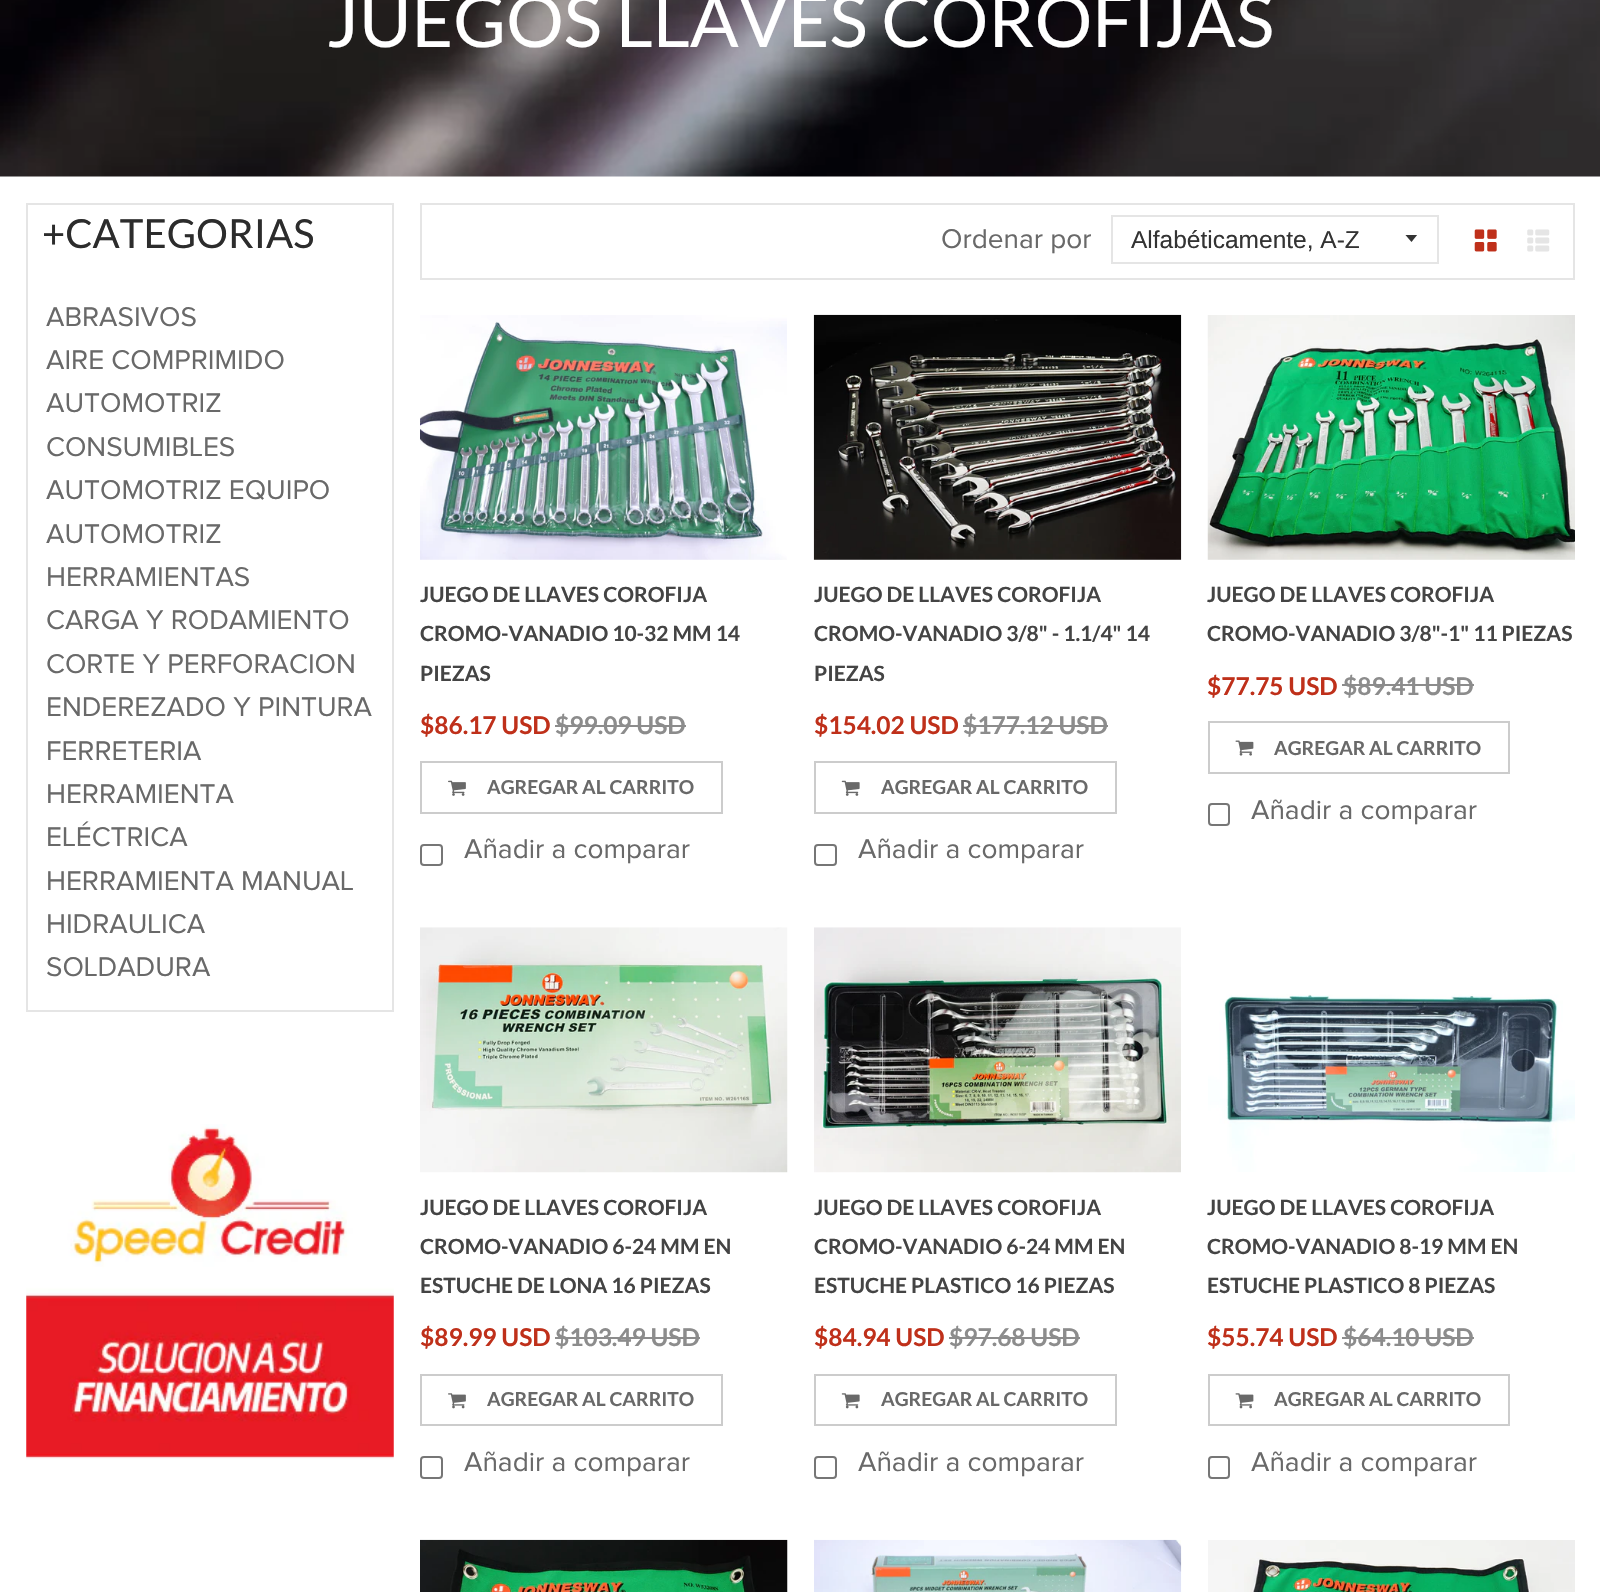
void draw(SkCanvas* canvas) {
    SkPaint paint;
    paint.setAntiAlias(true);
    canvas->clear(0xFFFFFFFF);
    canvas->drawImageRect(SkImages::DeferredFromEncodedData(SkData::MakeFromFileName("img1.png")), SkRect::MakeXYWH(0, 0, 1600, 177), SkSamplingOptions());
    SkFont font1(fontMgr->matchFamilyStyle("Lato", SkFontStyle::Normal()), 72);
    font1.setSubpixel(true);
    paint.setColor(0xFFFFFFFF);
    canvas->drawString("JUEGOS LLAVES COROFIJAS", 327, 47, font1, paint);
    paint.setStyle(SkPaint::kStroke_Style);
    paint.setStrokeWidth(2);
    paint.setColor(0xFFE5E5E5);
    canvas->drawRect(SkRect::MakeXYWH(27, 204, 366, 807), paint);
    SkFont font2(fontMgr->matchFamilyStyle("Lato", SkFontStyle::Normal()), 40);
    font2.setSubpixel(true);
    paint.setStyle(SkPaint::kFill_Style);
    paint.setColor(0xFF2C2C2C);
    canvas->drawString("+CATEGORIAS", 42, 248, font2, paint);
    SkFont font3(fontMgr->matchFamilyStyle("Proxima Nova", SkFontStyle::Normal()), 28);
    font3.setSubpixel(true);
    paint.setColor(0xFF696969);
    canvas->drawString("ABRASIVOS", 46, 326, font3, paint);
    canvas->drawString("AIRE COMPRIMIDO", 46, 369, font3, paint);
    canvas->drawString("AUTOMOTRIZ", 46, 412, font3, paint);
    canvas->drawString("CONSUMIBLES", 46, 456, font3, paint);
    canvas->drawString("AUTOMOTRIZ EQUIPO", 46, 499, font3, paint);
    canvas->drawString("AUTOMOTRIZ", 46, 543, font3, paint);
    canvas->drawString("HERRAMIENTAS", 46, 586, font3, paint);
    canvas->drawString("CARGA Y RODAMIENTO", 46, 629, font3, paint);
    canvas->drawString("CORTE Y PERFORACION", 46, 673, font3, paint);
    canvas->drawString("ENDEREZADO Y PINTURA", 46, 716, font3, paint);
    canvas->drawString("FERRETERIA", 46, 760, font3, paint);
    canvas->drawString("HERRAMIENTA", 46, 803, font3, paint);
    canvas->drawString("ELÉCTRICA", 46, 846, font3, paint);
    canvas->drawString("HERRAMIENTA MANUAL", 46, 890, font3, paint);
    canvas->drawString("HIDRAULICA", 46, 933, font3, paint);
    canvas->drawString("SOLDADURA", 46, 976, font3, paint);
    canvas->drawImageRect(SkImages::DeferredFromEncodedData(SkData::MakeFromFileName("img2.png")), SkRect::MakeXYWH(26, 1124, 368, 336), SkSamplingOptions());
    paint.setStyle(SkPaint::kStroke_Style);
    paint.setColor(0xFFE5E5E5);
    canvas->drawRect(SkRect::MakeXYWH(421, 204, 1153, 75), paint);
    paint.setStyle(SkPaint::kFill_Style);
    paint.setColor(0xFF696969);
    canvas->drawString("Ordenar por", 941, 248, font3, paint);
    canvas->save();
    canvas->clipRect(SkRect::MakeXYWH(1405, 235, 14, 8));
    paint.setColor(0xFF333333);
    canvas->drawPath(SkPathBuilder().moveTo(1405, 234.5f).lineTo(1411.5f, 242).lineTo(1417.5f, 234.5f).close().detach(), paint);
    canvas->restore();
    paint.setStyle(SkPaint::kStroke_Style);
    paint.setColor(0xFFE5E5E5);
    canvas->drawRect(SkRect::MakeXYWH(1112, 216, 326, 47), paint);
    SkFont font4(fontMgr->matchFamilyStyle("Liberation Sans", SkFontStyle::Normal()), 24.5f);
    font4.setSubpixel(true);
    paint.setStyle(SkPaint::kFill_Style);
    paint.setColor(0xFF333333);
    canvas->drawString("Alfabéticamente, A-Z", 1131, 248, font4, paint);
    canvas->drawImageRect(SkImages::DeferredFromEncodedData(SkData::MakeFromFileName("img3.png")), SkRect::MakeXYWH(1474, 229, 23, 23), SkSamplingOptions());
    canvas->drawImageRect(SkImages::DeferredFromEncodedData(SkData::MakeFromFileName("img4.png")), SkRect::MakeXYWH(1527, 229, 23, 23), SkSamplingOptions());
    canvas->drawImageRect(SkImages::DeferredFromEncodedData(SkData::MakeFromFileName("img5.png")), SkRect::MakeXYWH(420, 315, 367, 245), SkSamplingOptions());
    SkFont font5(fontMgr->matchFamilyStyle("Lato", SkFontStyle::Bold()), 21);
    font5.setSubpixel(true);
    paint.setColor(0xFF444444);
    canvas->drawString("JUEGO DE LLAVES COROFIJA", 420, 602, font5, paint);
    canvas->drawString("CROMO-VANADIO 10-32 MM 14", 420, 641, font5, paint);
    canvas->drawString("PIEZAS", 420, 681, font5, paint);
    SkFont font6(fontMgr->matchFamilyStyle("Lato", SkFontStyle::Bold()), 24.5f);
    font6.setSubpixel(true);
    paint.setColor(0xFFBF301A);
    canvas->drawString("$86.17 USD", 420, 734, font6, paint);
    paint.setColor(0xFF8C8C8C);
    canvas->drawString("$99.09 USD", 555, 734, font6, paint);
    canvas->drawRect(SkRect::MakeXYWH(555, 725, 131, 2), paint);
    paint.setStyle(SkPaint::kStroke_Style);
    paint.setColor(0xFFCCCCCC);
    canvas->drawRect(SkRect::MakeXYWH(421, 762, 301, 51), paint);
    canvas->drawImageRect(SkImages::DeferredFromEncodedData(SkData::MakeFromFileName("img6.png")), SkRect::MakeXYWH(448, 780, 18, 16), SkSamplingOptions());
    SkFont font7(fontMgr->matchFamilyStyle("Lato", SkFontStyle::Bold()), 19.25f);
    font7.setSubpixel(true);
    paint.setStyle(SkPaint::kFill_Style);
    paint.setColor(0xFF696969);
    canvas->drawString("AGREGAR AL CARRITO", 487, 794, font7, paint);
    paint.setStyle(SkPaint::kStroke_Style);
    paint.setColor(0xFF767676);
    canvas->drawRoundRect(SkRect::MakeXYWH(421, 845, 21, 20), 3, 3, paint);
    paint.setStyle(SkPaint::kFill_Style);
    paint.setColor(0xFF696969);
    canvas->drawString("Añadir a comparar", 464, 858, font3, paint);
    canvas->drawImageRect(SkImages::DeferredFromEncodedData(SkData::MakeFromFileName("img7.png")), SkRect::MakeXYWH(813, 314, 369, 246), SkSamplingOptions());
    paint.setColor(0xFF444444);
    canvas->drawString("JUEGO DE LLAVES COROFIJA", 814, 602, font5, paint);
    canvas->drawString("CROMO-VANADIO 3/8\" - 1.1/4\" 14", 814, 641, font5, paint);
    canvas->drawString("PIEZAS", 814, 681, font5, paint);
    paint.setColor(0xFFBF301A);
    canvas->drawString("$154.02 USD", 814, 734, font6, paint);
    paint.setColor(0xFF8C8C8C);
    canvas->drawString("$177.12 USD", 963, 734, font6, paint);
    canvas->drawRect(SkRect::MakeXYWH(963, 725, 145, 2), paint);
    paint.setStyle(SkPaint::kStroke_Style);
    paint.setColor(0xFFCCCCCC);
    canvas->drawRect(SkRect::MakeXYWH(815, 762, 301, 51), paint);
    canvas->drawImageRect(SkImages::DeferredFromEncodedData(SkData::MakeFromFileName("img8.png")), SkRect::MakeXYWH(841, 780, 19, 16), SkSamplingOptions());
    paint.setStyle(SkPaint::kFill_Style);
    paint.setColor(0xFF696969);
    canvas->drawString("AGREGAR AL CARRITO", 881, 794, font7, paint);
    paint.setStyle(SkPaint::kStroke_Style);
    paint.setColor(0xFF767676);
    canvas->drawRoundRect(SkRect::MakeXYWH(815, 845, 21, 20), 3, 3, paint);
    paint.setStyle(SkPaint::kFill_Style);
    paint.setColor(0xFF696969);
    canvas->drawString("Añadir a comparar", 858, 858, font3, paint);
    canvas->drawImageRect(SkImages::DeferredFromEncodedData(SkData::MakeFromFileName("img9.png")), SkRect::MakeXYWH(1207, 315, 368, 245), SkSamplingOptions());
    paint.setColor(0xFF444444);
    canvas->drawString("JUEGO DE LLAVES COROFIJA", 1207, 602, font5, paint);
    canvas->drawString("CROMO-VANADIO 3/8\"-1\" 11 PIEZAS", 1207, 641, font5, paint);
    paint.setColor(0xFFBF301A);
    canvas->drawString("$77.75 USD", 1207, 695, font6, paint);
    paint.setColor(0xFF8C8C8C);
    canvas->drawString("$89.41 USD", 1343, 695, font6, paint);
    canvas->drawRect(SkRect::MakeXYWH(1342, 684, 132, 2), paint);
    paint.setStyle(SkPaint::kStroke_Style);
    paint.setColor(0xFFCCCCCC);
    canvas->drawRect(SkRect::MakeXYWH(1209, 722, 300, 51), paint);
    canvas->drawImageRect(SkImages::DeferredFromEncodedData(SkData::MakeFromFileName("img10.png")), SkRect::MakeXYWH(1235, 740, 19, 16), SkSamplingOptions());
    paint.setStyle(SkPaint::kFill_Style);
    paint.setColor(0xFF696969);
    canvas->drawString("AGREGAR AL CARRITO", 1274, 755, font7, paint);
    paint.setStyle(SkPaint::kStroke_Style);
    paint.setColor(0xFF767676);
    canvas->drawRoundRect(SkRect::MakeXYWH(1209, 804, 20, 21), 3, 3, paint);
    paint.setStyle(SkPaint::kFill_Style);
    paint.setColor(0xFF696969);
    canvas->drawString("Añadir a comparar", 1251, 819, font3, paint);
    canvas->drawImageRect(SkImages::DeferredFromEncodedData(SkData::MakeFromFileName("img11.png")), SkRect::MakeXYWH(420, 927, 368, 246), SkSamplingOptions());
    paint.setColor(0xFF444444);
    canvas->drawString("JUEGO DE LLAVES COROFIJA", 420, 1215, font5, paint);
    canvas->drawString("CROMO-VANADIO 6-24 MM EN", 420, 1254, font5, paint);
    canvas->drawString("ESTUCHE DE LONA 16 PIEZAS", 420, 1293, font5, paint);
    paint.setColor(0xFFBF301A);
    canvas->drawString("$89.99 USD", 420, 1346, font6, paint);
    paint.setColor(0xFF8C8C8C);
    canvas->drawString("$103.49 USD", 555, 1346, font6, paint);
    canvas->drawRect(SkRect::MakeXYWH(555, 1337, 145, 2), paint);
    paint.setStyle(SkPaint::kStroke_Style);
    paint.setColor(0xFFCCCCCC);
    canvas->drawRect(SkRect::MakeXYWH(421, 1375, 301, 50), paint);
    canvas->drawImageRect(SkImages::DeferredFromEncodedData(SkData::MakeFromFileName("img12.png")), SkRect::MakeXYWH(448, 1393, 18, 16), SkSamplingOptions());
    paint.setStyle(SkPaint::kFill_Style);
    paint.setColor(0xFF696969);
    canvas->drawString("AGREGAR AL CARRITO", 487, 1406, font7, paint);
    paint.setStyle(SkPaint::kStroke_Style);
    paint.setColor(0xFF767676);
    canvas->drawRoundRect(SkRect::MakeXYWH(421, 1457, 21, 21), 3, 3, paint);
    paint.setStyle(SkPaint::kFill_Style);
    paint.setColor(0xFF696969);
    canvas->drawString("Añadir a comparar", 464, 1471, font3, paint);
    canvas->drawImageRect(SkImages::DeferredFromEncodedData(SkData::MakeFromFileName("img13.png")), SkRect::MakeXYWH(814, 927, 367, 246), SkSamplingOptions());
    paint.setColor(0xFF444444);
    canvas->drawString("JUEGO DE LLAVES COROFIJA", 814, 1215, font5, paint);
    canvas->drawString("CROMO-VANADIO 6-24 MM EN", 814, 1254, font5, paint);
    canvas->drawString("ESTUCHE PLASTICO 16 PIEZAS", 814, 1293, font5, paint);
    paint.setColor(0xFFBF301A);
    canvas->drawString("$84.94 USD", 814, 1346, font6, paint);
    paint.setColor(0xFF8C8C8C);
    canvas->drawString("$97.68 USD", 949, 1346, font6, paint);
    canvas->drawRect(SkRect::MakeXYWH(949, 1337, 131, 2), paint);
    paint.setStyle(SkPaint::kStroke_Style);
    paint.setColor(0xFFCCCCCC);
    canvas->drawRect(SkRect::MakeXYWH(815, 1375, 301, 50), paint);
    canvas->drawImageRect(SkImages::DeferredFromEncodedData(SkData::MakeFromFileName("img14.png")), SkRect::MakeXYWH(841, 1393, 19, 16), SkSamplingOptions());
    paint.setStyle(SkPaint::kFill_Style);
    paint.setColor(0xFF696969);
    canvas->drawString("AGREGAR AL CARRITO", 881, 1406, font7, paint);
    paint.setStyle(SkPaint::kStroke_Style);
    paint.setColor(0xFF767676);
    canvas->drawRoundRect(SkRect::MakeXYWH(815, 1457, 21, 21), 3, 3, paint);
    paint.setStyle(SkPaint::kFill_Style);
    paint.setColor(0xFF696969);
    canvas->drawString("Añadir a comparar", 858, 1471, font3, paint);
    canvas->drawImageRect(SkImages::DeferredFromEncodedData(SkData::MakeFromFileName("img15.png")), SkRect::MakeXYWH(1208, 994, 367, 178), SkSamplingOptions());
    paint.setColor(0xFF444444);
    canvas->drawString("JUEGO DE LLAVES COROFIJA", 1207, 1215, font5, paint);
    canvas->drawString("CROMO-VANADIO 8-19 MM EN", 1207, 1254, font5, paint);
    canvas->drawString("ESTUCHE PLASTICO 8 PIEZAS", 1207, 1293, font5, paint);
    paint.setColor(0xFFBF301A);
    canvas->drawString("$55.74 USD", 1207, 1346, font6, paint);
    paint.setColor(0xFF8C8C8C);
    canvas->drawString("$64.10 USD", 1343, 1346, font6, paint);
    canvas->drawRect(SkRect::MakeXYWH(1342, 1337, 132, 2), paint);
    paint.setStyle(SkPaint::kStroke_Style);
    paint.setColor(0xFFCCCCCC);
    canvas->drawRect(SkRect::MakeXYWH(1209, 1375, 300, 50), paint);
    canvas->drawImageRect(SkImages::DeferredFromEncodedData(SkData::MakeFromFileName("img16.png")), SkRect::MakeXYWH(1235, 1393, 19, 16), SkSamplingOptions());
    paint.setStyle(SkPaint::kFill_Style);
    paint.setColor(0xFF696969);
    canvas->drawString("AGREGAR AL CARRITO", 1274, 1406, font7, paint);
    paint.setStyle(SkPaint::kStroke_Style);
    paint.setColor(0xFF767676);
    canvas->drawRoundRect(SkRect::MakeXYWH(1209, 1457, 20, 21), 3, 3, paint);
    paint.setStyle(SkPaint::kFill_Style);
    paint.setColor(0xFF696969);
    canvas->drawString("Añadir a comparar", 1251, 1471, font3, paint);
    canvas->drawImageRect(SkImages::DeferredFromEncodedData(SkData::MakeFromFileName("img17.png")), SkRect::MakeXYWH(420, 1539, 368, 53), SkSamplingOptions());
    canvas->drawImageRect(SkImages::DeferredFromEncodedData(SkData::MakeFromFileName("img18.png")), SkRect::MakeXYWH(814, 1539, 368, 53), SkSamplingOptions());
    canvas->drawImageRect(SkImages::DeferredFromEncodedData(SkData::MakeFromFileName("img19.png")), SkRect::MakeXYWH(1208, 1540, 367, 52), SkSamplingOptions());
}
